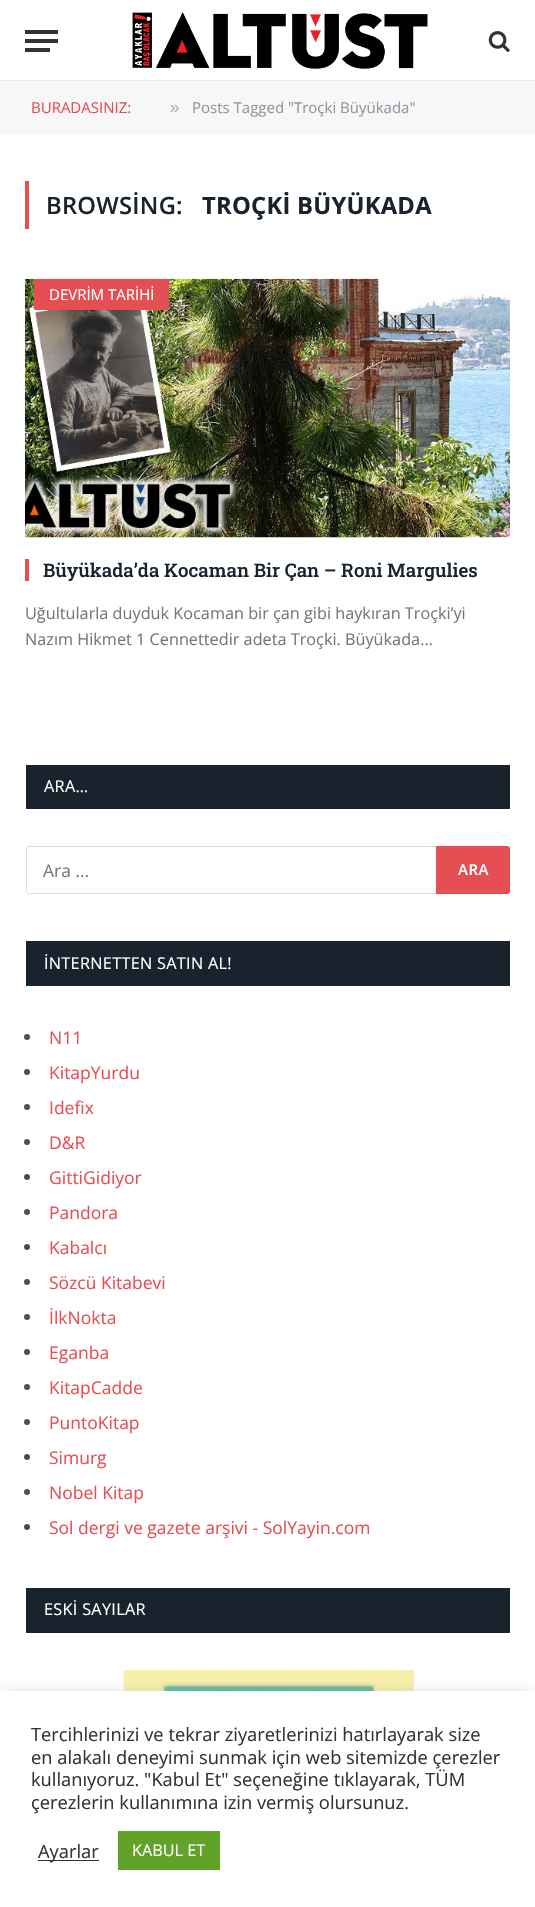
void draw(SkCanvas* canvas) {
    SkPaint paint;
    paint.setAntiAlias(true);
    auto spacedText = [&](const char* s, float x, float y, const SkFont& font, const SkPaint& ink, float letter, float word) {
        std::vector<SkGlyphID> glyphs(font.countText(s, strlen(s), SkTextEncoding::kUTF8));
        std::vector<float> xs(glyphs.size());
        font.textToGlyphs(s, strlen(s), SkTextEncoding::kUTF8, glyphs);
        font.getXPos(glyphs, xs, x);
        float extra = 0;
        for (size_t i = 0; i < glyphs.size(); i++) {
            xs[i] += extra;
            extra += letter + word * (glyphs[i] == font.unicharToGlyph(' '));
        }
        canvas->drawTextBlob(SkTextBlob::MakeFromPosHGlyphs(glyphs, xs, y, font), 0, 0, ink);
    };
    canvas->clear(0xFFFFFFFF);
    paint.setColor(0xFFE8E8E8);
    canvas->drawRect(SkRect::MakeXYWH(0, 80, 535, 1), paint);
    paint.setColor(0xFF333333);
    canvas->drawRect(SkRect::MakeXYWH(25, 48, 25, 4), paint);
    canvas->drawRect(SkRect::MakeXYWH(25, 30, 33, 4), paint);
    canvas->drawRect(SkRect::MakeXYWH(25, 39, 33, 4), paint);
    canvas->drawImageRect(SkImages::DeferredFromEncodedData(SkData::MakeFromFileName("img1.png")), SkRect::MakeXYWH(132, 12, 296, 57), SkSamplingOptions());
    canvas->drawImageRect(SkImages::DeferredFromEncodedData(SkData::MakeFromFileName("img2.png")), SkRect::MakeXYWH(488, 31, 22, 21), SkSamplingOptions());
    paint.setColor(0xFFF7F7F7);
    canvas->drawRect(SkRect::MakeXYWH(0, 81, 535, 53), paint);
    SkFont font1(fontMgr->matchFamilyStyle("Open Sans", SkFontStyle::Normal()), 15);
    font1.setSubpixel(true);
    paint.setColor(0xFFE54E53);
    canvas->drawString("BURADASINIZ:", 31, 113, font1, paint);
    SkFont font2(fontMgr->matchFamilyStyle("Liberation Sans", SkFontStyle::Normal()), 17);
    font2.setSubpixel(true);
    paint.setColor(0xFFA2AAB2);
    canvas->drawString("»", 170, 113, font2, paint);
    paint.setColor(0xFF8D97A1);
    canvas->drawString("Posts Tagged \"Troçki Büyükada\"", 192, 113, font1, paint);
    paint.setColor(0xFFE54E53);
    canvas->drawRect(SkRect::MakeXYWH(25, 181, 4, 48), paint);
    SkFont font3(fontMgr->matchFamilyStyle("Open Sans", SkFontStyle(600, SkFontStyle::kNormal_Width, SkFontStyle::kUpright_Slant)), 23.75f);
    font3.setSubpixel(true);
    paint.setColor(0xFF19232D);
    spacedText("BROWSİNG:", 46, 214, font3, paint, 0.25f, 0);
    SkFont font4(fontMgr->matchFamilyStyle("Open Sans", SkFontStyle::Bold()), 23.75f);
    font4.setSubpixel(true);
    spacedText("TROÇKİ BÜYÜKADA", 202, 214, font4, paint, 0.25f, 0);
    canvas->drawImageRect(SkImages::DeferredFromEncodedData(SkData::MakeFromFileName("img3.png")), SkRect::MakeXYWH(25, 278, 485, 260), SkSamplingOptions());
    paint.setColor(0xFFE54E53);
    canvas->drawRoundRect(SkRect::MakeXYWH(34, 279, 135, 31), 1, 1, paint);
    paint.setColor(0xFFFFFFFF);
    canvas->drawString("DEVRİM TARİHİ", 49, 300, font1, paint);
    paint.setColor(0xFFE54E53);
    canvas->drawRect(SkRect::MakeXYWH(25, 559, 4, 22), paint);
    SkFont font5(fontMgr->matchFamilyStyle("Roboto Slab", SkFontStyle(500, SkFontStyle::kNormal_Width, SkFontStyle::kUpright_Slant)), 18.75f);
    font5.setSubpixel(true);
    paint.setColor(0xFF19232D);
    canvas->drawString("Büyükada’da Kocaman Bir Çan – Roni Margulies", 43, 577, font5, paint);
    SkFont font6(fontMgr->matchFamilyStyle("Open Sans", SkFontStyle::Normal()), 16.25f);
    font6.setSubpixel(true);
    paint.setColor(0xFF777777);
    canvas->drawString("Uğultularla duyduk Kocaman bir çan gibi haykıran Troçki’yi", 25, 619, font6, paint);
    canvas->drawString("Nazım Hikmet 1 Cennettedir adeta Troçki. Büyükada…", 25, 645, font6, paint);
    paint.setColor(0xFF19232D);
    canvas->drawRect(SkRect::MakeXYWH(26, 765, 484, 44), paint);
    paint.setColor(0xFFFFFFFF);
    spacedText("ARA…", 44, 792, font6, paint, 0.3f, 0);
    paint.setStyle(SkPaint::kStroke_Style);
    paint.setStrokeWidth(1);
    paint.setColor(0xFFDDDDDD);
    canvas->drawRoundRect(SkRect::MakeXYWH(26.5f, 846.5f, 412, 47), 2, 2, paint);
    SkFont font7(fontMgr->matchFamilyStyle("Open Sans", SkFontStyle::Normal()), 17.5f);
    font7.setSubpixel(true);
    paint.setStyle(SkPaint::kFill_Style);
    paint.setColor(0xFF777777);
    canvas->drawString("Ara …", 43, 877, font7, paint);
    paint.setColor(0xFFE54E53);
    canvas->drawPath(SkPathBuilder().moveTo(436, 846).lineTo(507.5f, 846).cubicTo(509, 846, 510, 847, 510, 848.5f).lineTo(510, 891.5f).cubicTo(510, 893, 509, 894, 507.5f, 894).lineTo(436, 894).close().detach(), paint);
    SkFont font8(fontMgr->matchFamilyStyle("Open Sans", SkFontStyle(600, SkFontStyle::kNormal_Width, SkFontStyle::kUpright_Slant)), 15);
    font8.setSubpixel(true);
    paint.setColor(0xFFFFFFFF);
    spacedText("ARA", 458, 875, font8, paint, 0.5f, 0);
    paint.setColor(0xFF19232D);
    canvas->drawRect(SkRect::MakeXYWH(26, 941, 484, 45), paint);
    paint.setColor(0xFFFFFFFF);
    spacedText("İNTERNETTEN SATIN AL!", 44, 969, font6, paint, 0.3f, 0);
    paint.setColor(0xFF4D5053);
    canvas->drawCircle(27, 1037, 3, paint);
    paint.setColor(0xFFE54E53);
    canvas->drawString("N11", 49, 1044, font7, paint);
    paint.setColor(0xFF4D5053);
    canvas->drawCircle(27, 1072, 3, paint);
    paint.setColor(0xFFE54E53);
    canvas->drawString("KitapYurdu", 49, 1079, font7, paint);
    paint.setColor(0xFF4D5053);
    canvas->drawCircle(27, 1107, 3, paint);
    paint.setColor(0xFFE54E53);
    canvas->drawString("Idefix", 49, 1114, font7, paint);
    paint.setColor(0xFF4D5053);
    canvas->drawCircle(27, 1142, 3, paint);
    paint.setColor(0xFFE54E53);
    canvas->drawString("D&R", 49, 1149, font7, paint);
    paint.setColor(0xFF4D5053);
    canvas->drawCircle(27, 1177, 3, paint);
    paint.setColor(0xFFE54E53);
    canvas->drawString("GittiGidiyor", 49, 1184, font7, paint);
    paint.setColor(0xFF4D5053);
    canvas->drawCircle(27, 1212, 3, paint);
    paint.setColor(0xFFE54E53);
    canvas->drawString("Pandora", 49, 1219, font7, paint);
    paint.setColor(0xFF4D5053);
    canvas->drawCircle(27, 1247, 3, paint);
    paint.setColor(0xFFE54E53);
    canvas->drawString("Kabalcı", 49, 1254, font7, paint);
    paint.setColor(0xFF4D5053);
    canvas->drawCircle(27, 1282, 3, paint);
    paint.setColor(0xFFE54E53);
    canvas->drawString("Sözcü Kitabevi", 49, 1289, font7, paint);
    paint.setColor(0xFF4D5053);
    canvas->drawCircle(27, 1317, 3, paint);
    paint.setColor(0xFFE54E53);
    canvas->drawString("İlkNokta", 49, 1324, font7, paint);
    paint.setColor(0xFF4D5053);
    canvas->drawCircle(27, 1352, 3, paint);
    paint.setColor(0xFFE54E53);
    canvas->drawString("Eganba", 49, 1359, font7, paint);
    paint.setColor(0xFF4D5053);
    canvas->drawCircle(27, 1387, 3, paint);
    paint.setColor(0xFFE54E53);
    canvas->drawString("KitapCadde", 49, 1394, font7, paint);
    paint.setColor(0xFF4D5053);
    canvas->drawCircle(27, 1422, 3, paint);
    paint.setColor(0xFFE54E53);
    canvas->drawString("PuntoKitap", 49, 1429, font7, paint);
    paint.setColor(0xFF4D5053);
    canvas->drawCircle(27, 1457, 3, paint);
    paint.setColor(0xFFE54E53);
    canvas->drawString("Simurg", 49, 1464, font7, paint);
    paint.setColor(0xFF4D5053);
    canvas->drawCircle(27, 1492, 3, paint);
    paint.setColor(0xFFE54E53);
    canvas->drawString("Nobel Kitap", 49, 1499, font7, paint);
    paint.setColor(0xFF4D5053);
    canvas->drawCircle(27, 1527, 3, paint);
    paint.setColor(0xFFE54E53);
    canvas->drawString("Sol dergi ve gazete arşivi - SolYayin.com", 49, 1534, font7, paint);
    paint.setColor(0xFF19232D);
    canvas->drawRect(SkRect::MakeXYWH(26, 1588, 484, 45), paint);
    paint.setColor(0xFFFFFFFF);
    spacedText("ESKİ SAYILAR", 44, 1615, font6, paint, 0.3f, 0);
    canvas->drawImageRect(SkImages::DeferredFromEncodedData(SkData::MakeFromFileName("img4.png")), SkRect::MakeXYWH(123, 1670, 291, 21), SkSamplingOptions());
    paint.setColor(0x4DACABAB);
    paint.setMaskFilter(SkMaskFilter::MakeBlur(kNormal_SkBlurStyle, 6));
    canvas->drawRect(SkRect::MakeXYWH(0, 1690, 535, 216), paint);
    paint.setMaskFilter(nullptr);
    paint.setColor(0xFFFFFFFF);
    canvas->drawRect(SkRect::MakeXYWH(0, 1691, 535, 216), paint);
    SkFont font9(fontMgr->matchFamilyStyle("Open Sans", SkFontStyle::Normal()), 18.3f);
    font9.setSubpixel(true);
    paint.setColor(0xFF333333);
    canvas->drawString("Tercihlerinizi ve tekrar ziyaretlerinizi hatırlayarak size", 31, 1741, font9, paint);
    canvas->drawString("en alakalı deneyimi sunmak için web sitemizde çerezler", 31, 1764, font9, paint);
    canvas->drawString("kullanıyoruz. \"Kabul Et\" seçeneğine tıklayarak, TÜM", 31, 1786, font9, paint);
    canvas->drawString("çerezlerin kullanımına izin vermiş olursunuz.", 31, 1809, font9, paint);
    canvas->drawRect(SkRect::MakeXYWH(38, 1860, 61, 1), paint);
    canvas->drawString("Ayarlar", 38, 1858, font9, paint);
    paint.setColor(0xFF61A229);
    canvas->drawRect(SkRect::MakeXYWH(118, 1831, 102, 39), paint);
    paint.setColor(0xFFFFFFFF);
    canvas->drawString("KABUL ET", 132, 1856, font6, paint);
}
